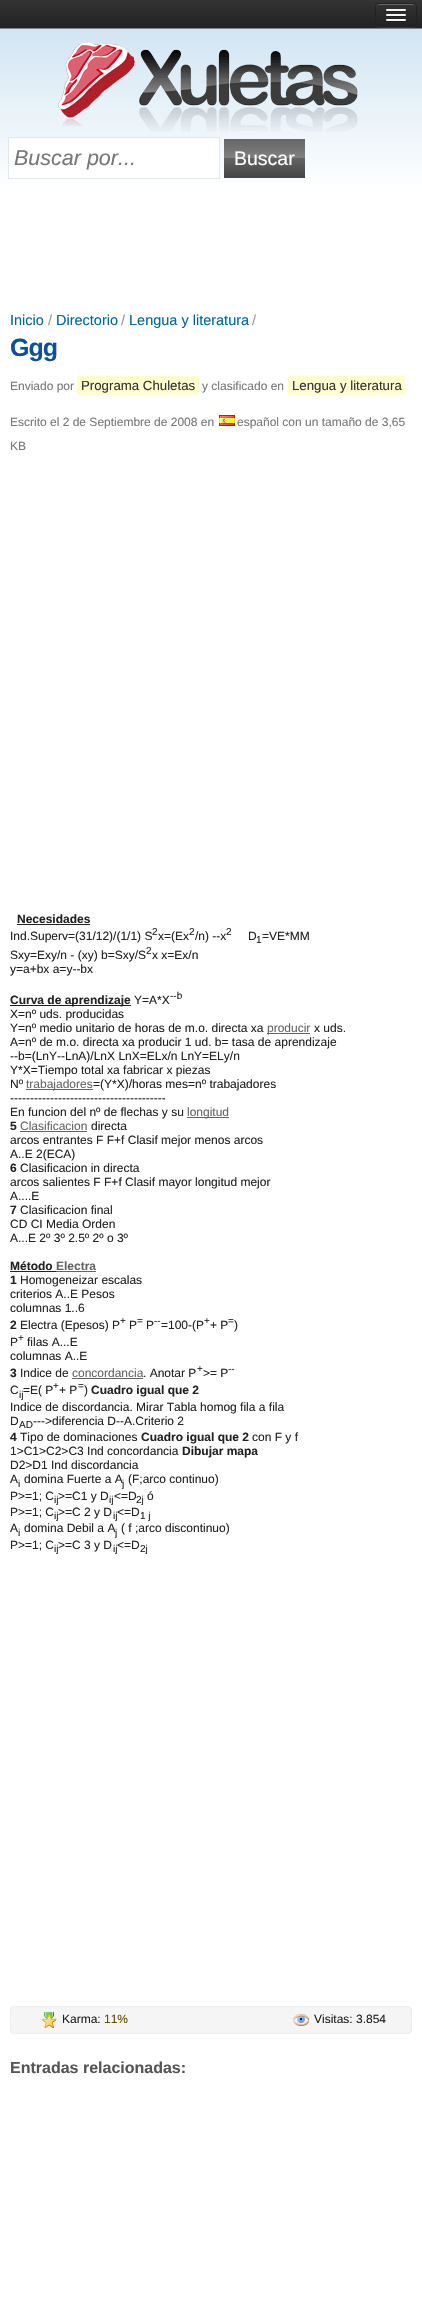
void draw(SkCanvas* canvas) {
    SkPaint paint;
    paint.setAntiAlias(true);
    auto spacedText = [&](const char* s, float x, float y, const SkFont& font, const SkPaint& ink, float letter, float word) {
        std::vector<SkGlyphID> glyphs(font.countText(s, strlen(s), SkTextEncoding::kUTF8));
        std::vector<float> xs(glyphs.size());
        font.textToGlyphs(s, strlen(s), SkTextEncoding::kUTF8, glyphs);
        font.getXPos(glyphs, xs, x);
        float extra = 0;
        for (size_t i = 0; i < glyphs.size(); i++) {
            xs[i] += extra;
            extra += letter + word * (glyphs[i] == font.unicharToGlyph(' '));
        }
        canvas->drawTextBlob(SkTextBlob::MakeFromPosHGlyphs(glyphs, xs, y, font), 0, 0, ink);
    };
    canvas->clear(0xFFFFFFFF);
    {
        const SkColor colors[] = {0xFF333333, 0xFF222222};
        const float stops[] = {0, 1};
        const SkPoint ends[] = {{211, 0}, {211, 28}};
        paint.setShader(SkGradientShader::MakeLinear(ends, colors, stops, 2, SkTileMode::kClamp));
        paint.setAlpha(255);
    }
    canvas->drawRect(SkRect::MakeXYWH(0, 0, 422, 28), paint);
    paint.setShader(nullptr);
    paint.setColor(0xFF818181);
    canvas->drawRect(SkRect::MakeXYWH(0, 28, 422, 1), paint);
    canvas->save();
    canvas->clipRect(SkRect::MakeXYWH(0, 0, 422, 28));
    paint.setColor(0xFF333333);
    canvas->drawPath(SkPathBuilder().moveTo(375, 23).cubicTo(375, 29, 380, 28, 385, 28).lineTo(407, 28).cubicTo(412, 28, 417, 29, 417, 23).cubicTo(417, 25, 415, 27, 413, 27).lineTo(379, 27).cubicTo(377, 27, 375, 25, 375, 23).close().detach(), paint);
    canvas->restore();
    canvas->save();
    canvas->clipPath(SkPathBuilder().moveTo(379, 3).lineTo(413, 3).cubicTo(415, 3, 417, 5, 417, 7).lineTo(417, 23).cubicTo(417, 25, 415, 27, 413, 27).lineTo(379, 27).cubicTo(377, 27, 375, 25, 375, 23).lineTo(375, 7).cubicTo(375, 5, 377, 3, 379, 3).close().detach(), true);
    {
        const SkColor colors[] = {0xFF333333, 0xFF222222};
        const float stops[] = {0, 1};
        const SkPoint ends[] = {{396, 4}, {396, 26}};
        paint.setShader(SkGradientShader::MakeLinear(ends, colors, stops, 2, SkTileMode::kClamp));
        paint.setAlpha(255);
    }
    canvas->drawRect(SkRect::MakeXYWH(375, 4, 42, 22), paint);
    canvas->restore();
    paint.setShader(nullptr);
    paint.setColor(0xFF666666);
    canvas->drawPath(SkPathBuilder().moveTo(379, 5).lineTo(413, 5).cubicTo(415, 5, 416, 6, 416, 8).cubicTo(416, 3, 411, 4, 407, 4).lineTo(385, 4).cubicTo(381, 4, 376, 3, 376, 8).cubicTo(376, 6, 377, 5, 379, 5).close().detach(), paint);
    paint.setStyle(SkPaint::kStroke_Style);
    paint.setStrokeWidth(1);
    paint.setColor(0xFF222222);
    canvas->drawRoundRect(SkRect::MakeXYWH(375.5f, 3.5f, 41, 23), 3.5f, 3.5f, paint);
    paint.setStyle(SkPaint::kFill_Style);
    canvas->drawPath(SkPathBuilder().moveTo(386, 10.5f).cubicTo(385, 12, 388, 12, 390, 12).lineTo(402, 12).cubicTo(404, 12, 407, 12, 406, 10.5f).lineTo(405, 11).lineTo(387, 11).close().detach(), paint);
    paint.setColor(0xFFF5F5F5);
    canvas->drawRoundRect(SkRect::MakeXYWH(386, 9, 20, 2), 1, 1, paint);
    paint.setColor(0xFF1F1F1F);
    canvas->drawPath(SkPathBuilder().moveTo(386, 15.5f).cubicTo(385, 17, 388, 17, 390, 17).lineTo(402, 17).cubicTo(404, 17, 407, 17, 406, 15.5f).lineTo(405, 16).lineTo(387, 16).close().detach(), paint);
    paint.setColor(0xFFF5F5F5);
    canvas->drawRoundRect(SkRect::MakeXYWH(386, 14, 20, 2), 1, 1, paint);
    paint.setColor(0xFF1C1C1C);
    canvas->drawPath(SkPathBuilder().moveTo(386, 20.5f).cubicTo(385, 22, 388, 22, 390, 22).lineTo(402, 22).cubicTo(404, 22, 407, 22, 406, 20.5f).lineTo(405, 21).lineTo(387, 21).close().detach(), paint);
    paint.setColor(0xFFF5F5F5);
    canvas->drawRoundRect(SkRect::MakeXYWH(386, 19, 20, 2), 1, 1, paint);
    {
        const SkColor colors[] = {0xFFD2E5F3, 0xFFFFFFFF};
        const float stops[] = {0, 1};
        const SkPoint ends[] = {{211, 29}, {211, 192}};
        paint.setShader(SkGradientShader::MakeLinear(ends, colors, stops, 2, SkTileMode::kClamp));
        paint.setAlpha(255);
    }
    canvas->drawRect(SkRect::MakeXYWH(0, 29, 422, 154), paint);
    canvas->drawImageRect(SkImages::DeferredFromEncodedData(SkData::MakeFromFileName("img1.png")), SkRect::MakeXYWH(58, 41, 300, 91), SkSamplingOptions());
    paint.setShader(nullptr);
    paint.setColor(0xFFFFFFFF);
    canvas->drawRect(SkRect::MakeXYWH(8.5f, 137.5f, 211, 41), paint);
    paint.setStyle(SkPaint::kStroke_Style);
    paint.setColor(0xFFE1E8EE);
    canvas->drawRect(SkRect::MakeXYWH(8.5f, 137.5f, 211, 41), paint);
    SkFont font1(fontMgr->matchFamilyStyle("Liberation Sans", SkFontStyle::Italic()), 21.5f);
    font1.setSubpixel(true);
    paint.setStyle(SkPaint::kFill_Style);
    paint.setColor(0xFF777777);
    canvas->drawString("Buscar por...", 14, 165, font1, paint);
    {
        const SkColor colors[] = {0xFF656565, 0xFF818181, 0xFF626262, 0xFF454545};
        const float stops[] = {0, 0.49f, 0.5f, 1};
        const SkPoint ends[] = {{265, 139}, {265, 178}};
        paint.setShader(SkGradientShader::MakeLinear(ends, colors, stops, 4, SkTileMode::kClamp));
        paint.setAlpha(255);
    }
    canvas->drawRect(SkRect::MakeXYWH(224, 139, 81, 39), paint);
    SkFont font2(fontMgr->matchFamilyStyle("Liberation Sans", SkFontStyle::Normal()), 19.5f);
    font2.setSubpixel(true);
    paint.setShader(nullptr);
    paint.setColor(0xFFFFFFFF);
    canvas->drawString("Buscar", 234, 165, font2, paint);
    SkFont font3(fontMgr->matchFamilyStyle("Liberation Sans", SkFontStyle::Normal()), 14.5f);
    font3.setSubpixel(true);
    paint.setColor(0xFF006699);
    canvas->drawString("Inicio", 10, 325, font3, paint);
    paint.setColor(0xFF999999);
    canvas->drawString("/", 48, 325, font3, paint);
    paint.setColor(0xFF006699);
    canvas->drawString("Directorio", 56, 325, font3, paint);
    paint.setColor(0xFF999999);
    canvas->drawString("/", 121, 325, font3, paint);
    paint.setColor(0xFF006699);
    canvas->drawString("Lengua y literatura", 129, 325, font3, paint);
    paint.setColor(0xFF999999);
    canvas->drawString("/", 252, 325, font3, paint);
    SkFont font4(fontMgr->matchFamilyStyle("Liberation Sans", SkFontStyle::Bold()), 25);
    font4.setSubpixel(true);
    paint.setColor(0xFF0E4E9B);
    spacedText("Ggg", 10, 356, font4, paint, -1, 0);
    SkFont font5(fontMgr->matchFamilyStyle("Liberation Sans", SkFontStyle::Normal()), 12);
    font5.setSubpixel(true);
    paint.setColor(0xFF777777);
    canvas->drawString("Enviado por", 10, 390, font5, paint);
    paint.setColor(0xFFFFFFCD);
    canvas->drawRect(SkRect::MakeXYWH(77, 376, 122, 19), paint);
    SkFont font6(fontMgr->matchFamilyStyle("Liberation Sans", SkFontStyle::Normal()), 13.25f);
    font6.setSubpixel(true);
    paint.setColor(0xFF333333);
    canvas->drawString("Programa Chuletas", 81, 390, font6, paint);
    paint.setColor(0xFF777777);
    canvas->drawString("y clasificado en", 202, 390, font5, paint);
    paint.setColor(0xFFFFFFCD);
    canvas->drawRect(SkRect::MakeXYWH(288, 376, 117, 19), paint);
    paint.setColor(0xFF333333);
    canvas->drawString("Lengua y literatura", 292, 390, font6, paint);
    paint.setColor(0xFF777777);
    canvas->drawString("Escrito el 2 de Septiembre de 2008 en", 10, 426, font5, paint);
    canvas->drawImageRect(SkImages::DeferredFromEncodedData(SkData::MakeFromFileName("img2.png")), SkRect::MakeXYWH(219, 415, 16, 11), SkSamplingOptions());
    canvas->drawString("español con un tamaño de 3,65", 237, 426, font5, paint);
    canvas->drawString("KB", 10, 450, font5, paint);
    SkFont font7(fontMgr->matchFamilyStyle("Liberation Sans", SkFontStyle::Bold()), 12);
    font7.setSubpixel(true);
    paint.setColor(0xFF222222);
    canvas->drawString("Necesidades", 17, 923, font7, paint);
    canvas->drawRect(SkRect::MakeXYWH(17, 924, 73, 1), paint);
    canvas->drawString("Ind.Superv=(31/12)/(1/1) S", 10, 940, font5, paint);
    SkFont font8(fontMgr->matchFamilyStyle("Liberation Sans", SkFontStyle::Normal()), 10);
    font8.setSubpixel(true);
    canvas->drawString("2", 152, 935, font8, paint);
    canvas->drawString("x=(Ex", 158, 940, font5, paint);
    canvas->drawString("2", 189, 935, font8, paint);
    canvas->drawString("/n) --x", 195, 940, font5, paint);
    canvas->drawString("2", 226, 935, font8, paint);
    canvas->drawString("D", 248, 940, font5, paint);
    canvas->drawString("1", 256, 943, font8, paint);
    canvas->drawString("=VE*MM", 262, 940, font5, paint);
    canvas->drawString("Sxy=Exy/n - (xy) b=Sxy/S", 10, 959, font5, paint);
    canvas->drawString("2", 146, 954, font8, paint);
    canvas->drawString("x x=Ex/n", 152, 959, font5, paint);
    canvas->drawString("y=a+bx a=y--bx", 10, 973, font5, paint);
    canvas->drawRect(SkRect::MakeXYWH(10, 1005, 121, 1), paint);
    canvas->drawString("Curva de aprendizaje", 10, 1004, font7, paint);
    canvas->drawString("Y=A*X", 134, 1004, font5, paint);
    canvas->drawString("--b", 170, 999, font8, paint);
    canvas->drawString("X=nº uds. producidas", 10, 1018, font5, paint);
    canvas->drawString("Y=nº medio unitario de horas de m.o. directa xa", 10, 1032, font5, paint);
    paint.setColor(0xFF646464);
    canvas->drawRect(SkRect::MakeXYWH(267, 1033, 43, 1), paint);
    canvas->drawString("producir", 267, 1032, font5, paint);
    paint.setColor(0xFF222222);
    canvas->drawString("x uds.", 314, 1032, font5, paint);
    canvas->drawString("A=nº de m.o. directa xa producir 1 ud. b= tasa de aprendizaje", 10, 1046, font5, paint);
    canvas->drawString("--b=(LnY--LnA)/LnX LnX=ELx/n LnY=ELy/n", 10, 1060, font5, paint);
    canvas->drawString("Y*X=Tiempo total xa fabricar x piezas", 10, 1074, font5, paint);
    canvas->drawString("Nº", 10, 1088, font5, paint);
    paint.setColor(0xFF646464);
    canvas->drawRect(SkRect::MakeXYWH(26, 1089, 67, 1), paint);
    canvas->drawString("trabajadores", 26, 1088, font5, paint);
    paint.setColor(0xFF222222);
    canvas->drawString("=(Y*X)/horas mes=nº trabajadores", 93, 1088, font5, paint);
    canvas->drawString("---------------------------------------", 10, 1102, font5, paint);
    canvas->drawString("En funcion del nº de flechas y su", 10, 1116, font5, paint);
    paint.setColor(0xFF646464);
    canvas->drawRect(SkRect::MakeXYWH(187, 1117, 42, 1), paint);
    canvas->drawString("longitud", 187, 1116, font5, paint);
    paint.setColor(0xFF222222);
    canvas->drawString("5", 10, 1130, font7, paint);
    paint.setColor(0xFF646464);
    canvas->drawString("Clasificacion", 20, 1130, font5, paint);
    canvas->drawRect(SkRect::MakeXYWH(20, 1131, 67, 1), paint);
    paint.setColor(0xFF222222);
    canvas->drawString("directa", 91, 1130, font5, paint);
    canvas->drawString("arcos entrantes F F+f Clasif mejor menos arcos", 10, 1144, font5, paint);
    canvas->drawString("A..E 2(ECA)", 10, 1158, font5, paint);
    canvas->drawString("6", 10, 1172, font7, paint);
    canvas->drawString("Clasificacion in directa", 20, 1172, font5, paint);
    canvas->drawString("arcos salientes F F+f Clasif mayor longitud mejor", 10, 1186, font5, paint);
    canvas->drawString("A....E", 10, 1200, font5, paint);
    canvas->drawString("7", 10, 1214, font7, paint);
    canvas->drawString("Clasificacion final", 20, 1214, font5, paint);
    canvas->drawString("CD CI Media Orden", 10, 1228, font5, paint);
    canvas->drawString("A...E 2º 3º 2.5º 2º o 3º", 10, 1242, font5, paint);
    canvas->drawString("Método", 10, 1270, font7, paint);
    canvas->drawRect(SkRect::MakeXYWH(10, 1271, 46, 1), paint);
    paint.setColor(0xFF646464);
    canvas->drawString("Electra", 56, 1270, font7, paint);
    canvas->drawRect(SkRect::MakeXYWH(56, 1271, 40, 1), paint);
    paint.setColor(0xFF222222);
    canvas->drawString("1", 10, 1284, font7, paint);
    canvas->drawString("Homogeneizar escalas", 20, 1284, font5, paint);
    canvas->drawString("criterios A..E Pesos", 10, 1298, font5, paint);
    canvas->drawString("columnas 1..6", 10, 1312, font5, paint);
    canvas->drawString("2", 10, 1329, font7, paint);
    canvas->drawString("Electra (Epesos) P", 20, 1329, font5, paint);
    canvas->drawString("+", 120, 1324, font8, paint);
    canvas->drawString("P", 129, 1329, font5, paint);
    canvas->drawString("=", 137, 1324, font8, paint);
    canvas->drawString("P", 146, 1329, font5, paint);
    canvas->drawString("--", 154, 1324, font8, paint);
    canvas->drawString("=100-(P", 161, 1329, font5, paint);
    canvas->drawString("+", 204, 1324, font8, paint);
    canvas->drawString("+ P", 210, 1329, font5, paint);
    canvas->drawString("=", 228, 1324, font8, paint);
    canvas->drawString(")", 234, 1329, font5, paint);
    canvas->drawString("P", 10, 1346, font5, paint);
    canvas->drawString("+", 18, 1341, font8, paint);
    canvas->drawString("filas A...E", 27, 1346, font5, paint);
    canvas->drawString("columnas A..E", 10, 1360, font5, paint);
    canvas->drawString("3", 10, 1377, font7, paint);
    canvas->drawString("Indice de", 20, 1377, font5, paint);
    paint.setColor(0xFF646464);
    canvas->drawString("concordancia", 72, 1377, font5, paint);
    canvas->drawRect(SkRect::MakeXYWH(72, 1378, 71, 1), paint);
    paint.setColor(0xFF222222);
    canvas->drawString(". Anotar P", 143, 1377, font5, paint);
    canvas->drawString("+", 197, 1372, font8, paint);
    canvas->drawString(">= P", 203, 1377, font5, paint);
    canvas->drawString("--", 228, 1372, font8, paint);
    canvas->drawString("C", 10, 1394, font5, paint);
    canvas->drawString("ij", 19, 1398, font8, paint);
    canvas->drawString("=E( P", 23, 1394, font5, paint);
    canvas->drawString("+", 53, 1389, font8, paint);
    canvas->drawString("+ P", 59, 1394, font5, paint);
    canvas->drawString("=", 78, 1389, font8, paint);
    canvas->drawString(")", 84, 1394, font5, paint);
    canvas->drawString("Cuadro igual que 2", 91, 1394, font7, paint);
    canvas->drawString("Indice de discordancia. Mirar Tabla homog fila a fila", 10, 1411, font5, paint);
    canvas->drawString("D", 10, 1425, font5, paint);
    canvas->drawString("AD", 19, 1428, font8, paint);
    canvas->drawString("--->diferencia D--A.Criterio 2", 33, 1425, font5, paint);
    canvas->drawString("4", 10, 1441, font7, paint);
    canvas->drawString("Tipo de dominaciones", 20, 1441, font5, paint);
    canvas->drawString("Cuadro igual que 2", 141, 1441, font7, paint);
    canvas->drawString("con F y f", 252, 1441, font5, paint);
    canvas->drawString("1>C1>C2>C3 Ind concordancia", 10, 1455, font5, paint);
    canvas->drawString("Dibujar mapa", 182, 1455, font7, paint);
    canvas->drawString("D2>D1 Ind discordancia", 10, 1469, font5, paint);
    canvas->drawString("A", 10, 1483, font5, paint);
    canvas->drawString("i", 18, 1487, font8, paint);
    canvas->drawString("domina Fuerte a A", 24, 1483, font5, paint);
    canvas->drawString("(F;arco continuo)", 128, 1483, font5, paint);
    canvas->drawString("j", 122, 1487, font8, paint);
    canvas->drawString("P>=1; C", 10, 1500, font5, paint);
    canvas->drawString("ij", 54, 1503, font8, paint);
    canvas->drawString(">=C1 y D", 58, 1500, font5, paint);
    canvas->drawString("ij", 109, 1503, font8, paint);
    canvas->drawString("<=D", 114, 1500, font5, paint);
    canvas->drawString("2j", 136, 1503, font8, paint);
    canvas->drawString("ó", 147, 1500, font5, paint);
    canvas->drawString("P>=1; C", 10, 1516, font5, paint);
    canvas->drawString("ij", 54, 1519, font8, paint);
    canvas->drawString(">=C 2 y D", 58, 1516, font5, paint);
    canvas->drawString("ij", 113, 1519, font8, paint);
    canvas->drawString("<=D", 117, 1516, font5, paint);
    canvas->drawString("1 j", 140, 1519, font8, paint);
    canvas->drawString("A", 10, 1532, font5, paint);
    canvas->drawString("i", 18, 1536, font8, paint);
    canvas->drawString("domina Debil a A", 24, 1532, font5, paint);
    canvas->drawString("j", 115, 1536, font8, paint);
    canvas->drawString("( f ;arco discontinuo)", 121, 1532, font5, paint);
    canvas->drawString("P>=1; C", 10, 1549, font5, paint);
    canvas->drawString("ij", 54, 1552, font8, paint);
    canvas->drawString(">=C 3 y D", 58, 1549, font5, paint);
    canvas->drawString("ij", 113, 1552, font8, paint);
    canvas->drawString("<=D", 117, 1549, font5, paint);
    canvas->drawString("2j", 140, 1552, font8, paint);
    paint.setColor(0xFFF5F5F5);
    canvas->drawRoundRect(SkRect::MakeXYWH(10.5f, 2006.5f, 401, 27), 3.5f, 3.5f, paint);
    paint.setStyle(SkPaint::kStroke_Style);
    paint.setColor(0xFFEEEEEE);
    canvas->drawRoundRect(SkRect::MakeXYWH(10.5f, 2006.5f, 401, 27), 3.5f, 3.5f, paint);
    canvas->drawImageRect(SkImages::DeferredFromEncodedData(SkData::MakeFromFileName("img3.png")), SkRect::MakeXYWH(42, 2012, 15, 16), SkSamplingOptions());
    paint.setStyle(SkPaint::kFill_Style);
    paint.setColor(0xFF222222);
    canvas->drawString("Karma:", 62, 2023, font5, paint);
    paint.setColor(0xFF714500);
    canvas->drawString("11%", 104, 2023, font5, paint);
    canvas->drawImageRect(SkImages::DeferredFromEncodedData(SkData::MakeFromFileName("img4.png")), SkRect::MakeXYWH(293, 2014, 16, 12), SkSamplingOptions());
    paint.setColor(0xFF222222);
    canvas->drawString("Visitas: 3.854", 314, 2023, font5, paint);
    SkFont font9(fontMgr->matchFamilyStyle("Liberation Sans", SkFontStyle::Bold()), 16);
    font9.setSubpixel(true);
    paint.setColor(0xFF555555);
    canvas->drawString("Entradas relacionadas:", 10, 2073, font9, paint);
}
